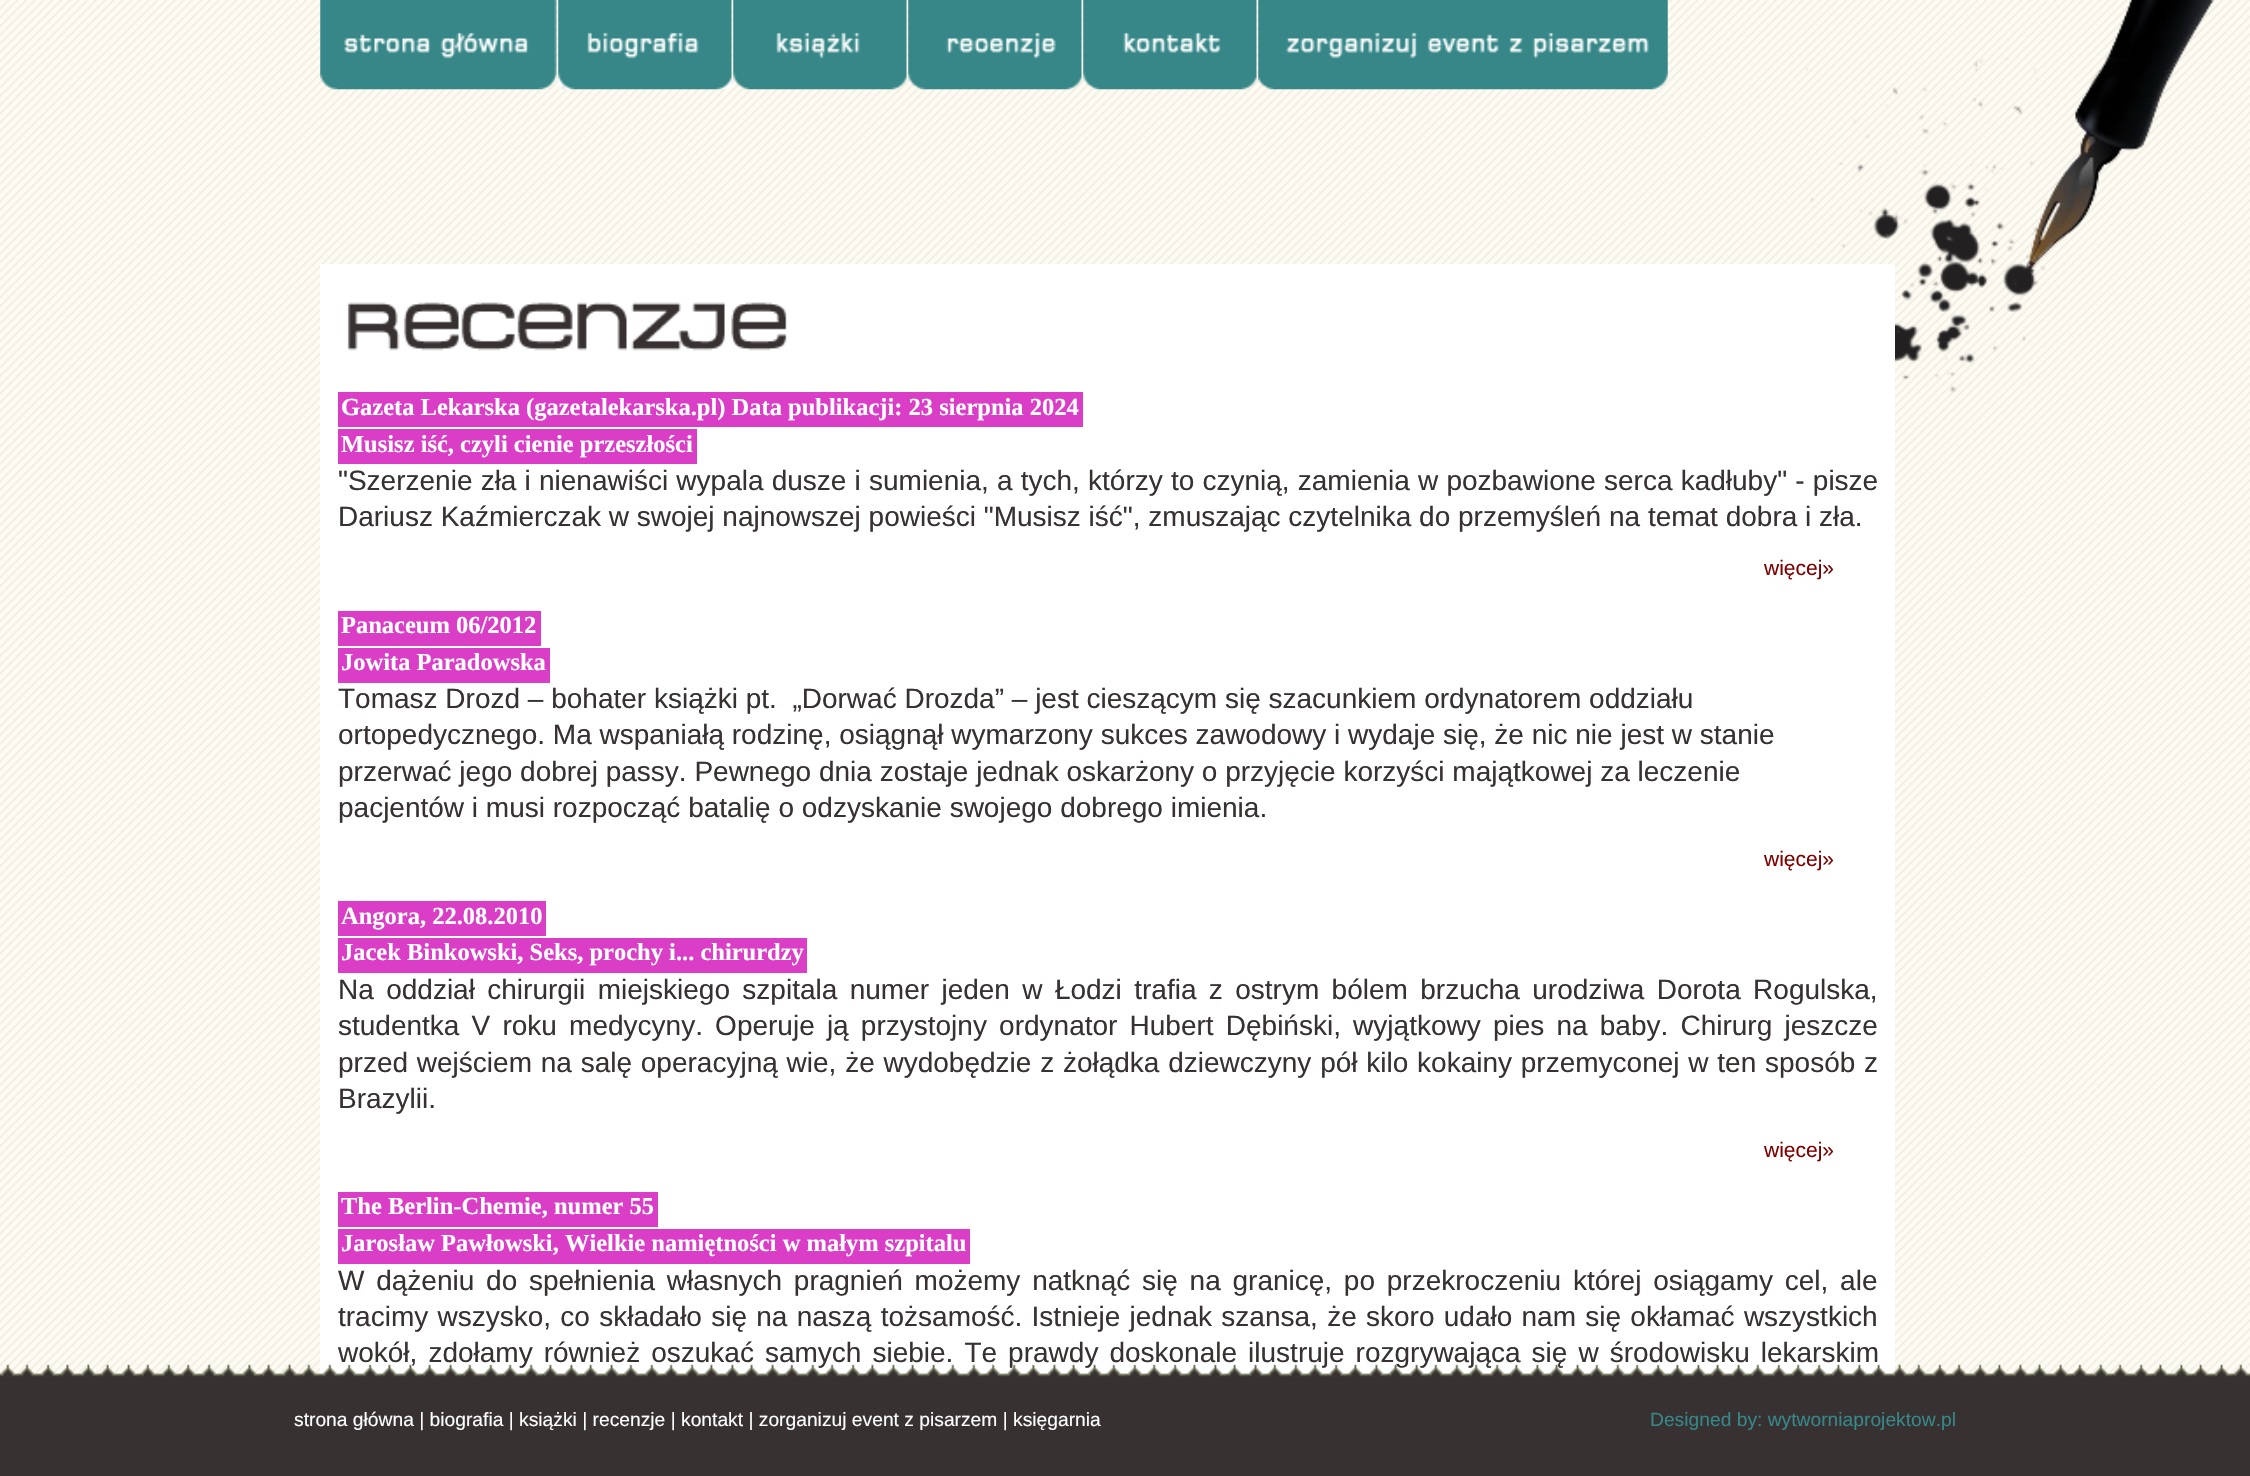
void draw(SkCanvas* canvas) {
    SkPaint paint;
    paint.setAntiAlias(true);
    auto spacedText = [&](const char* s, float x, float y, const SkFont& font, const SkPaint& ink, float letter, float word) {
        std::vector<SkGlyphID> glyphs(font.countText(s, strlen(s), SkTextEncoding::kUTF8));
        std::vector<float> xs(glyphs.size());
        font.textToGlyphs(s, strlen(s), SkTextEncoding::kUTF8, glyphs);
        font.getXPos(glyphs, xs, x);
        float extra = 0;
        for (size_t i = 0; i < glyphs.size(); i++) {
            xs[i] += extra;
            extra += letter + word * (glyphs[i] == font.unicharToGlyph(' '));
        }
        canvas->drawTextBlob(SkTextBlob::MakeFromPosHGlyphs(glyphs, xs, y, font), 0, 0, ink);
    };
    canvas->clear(0xFFFFFFFF);
    canvas->drawImageRect(SkImages::DeferredFromEncodedData(SkData::MakeFromFileName("img1.png")), SkRect::MakeXYWH(0, 0, 2250, 1377), SkSamplingOptions());
    canvas->drawImageRect(SkImages::DeferredFromEncodedData(SkData::MakeFromFileName("img2.png")), SkRect::MakeXYWH(1787, 0, 428, 393), SkSamplingOptions());
    canvas->drawImageRect(SkImages::DeferredFromEncodedData(SkData::MakeFromFileName("img3.png")), SkRect::MakeXYWH(320, 0, 237, 90), SkSamplingOptions());
    canvas->drawImageRect(SkImages::DeferredFromEncodedData(SkData::MakeFromFileName("img4.png")), SkRect::MakeXYWH(558, 0, 174, 90), SkSamplingOptions());
    canvas->drawImageRect(SkImages::DeferredFromEncodedData(SkData::MakeFromFileName("img5.png")), SkRect::MakeXYWH(733, 0, 174, 90), SkSamplingOptions());
    canvas->drawImageRect(SkImages::DeferredFromEncodedData(SkData::MakeFromFileName("img6.png")), SkRect::MakeXYWH(908, 0, 174, 90), SkSamplingOptions());
    canvas->drawImageRect(SkImages::DeferredFromEncodedData(SkData::MakeFromFileName("img7.png")), SkRect::MakeXYWH(1083, 0, 174, 90), SkSamplingOptions());
    canvas->drawImageRect(SkImages::DeferredFromEncodedData(SkData::MakeFromFileName("img8.png")), SkRect::MakeXYWH(1258, 0, 410, 90), SkSamplingOptions());
    paint.setColor(0xFFFFFFFF);
    canvas->drawRect(SkRect::MakeXYWH(320, 264, 1575, 1113), paint);
    canvas->drawImageRect(SkImages::DeferredFromEncodedData(SkData::MakeFromFileName("img9.png")), SkRect::MakeXYWH(347, 302, 440, 49), SkSamplingOptions());
    paint.setColor(0xFFDA3DC6);
    canvas->drawRect(SkRect::MakeXYWH(338, 392, 745, 35), paint);
    SkFont font1(fontMgr->matchFamilyStyle("Liberation Serif", SkFontStyle::Bold()), 24.5f);
    font1.setSubpixel(true);
    paint.setColor(0xFFFFFFFF);
    canvas->drawString("Gazeta Lekarska (gazetalekarska.pl) Data publikacji: 23 sierpnia 2024", 341, 415, font1, paint);
    paint.setColor(0xFFDA3DC6);
    canvas->drawRect(SkRect::MakeXYWH(338, 429, 359, 35), paint);
    paint.setColor(0xFFFFFFFF);
    canvas->drawString("Musisz iść, czyli cienie przeszłości", 341, 452, font1, paint);
    SkFont font2(fontMgr->matchFamilyStyle("Liberation Sans", SkFontStyle::Normal()), 28);
    font2.setSubpixel(true);
    paint.setColor(0xFF373131);
    spacedText("\"Szerzenie zła i nienawiści wypala dusze i sumienia, a tych, którzy to czynią, zamienia w pozbawione serca kadłuby\" - pisze", 338, 490, font2, paint, 0, 0.4f);
    canvas->drawString("Dariusz Kaźmierczak w swojej najnowszej powieści \"Musisz iść\", zmuszając czytelnika do przemyśleń na temat dobra i zła.", 338, 526, font2, paint);
    SkFont font3(fontMgr->matchFamilyStyle("Liberation Sans", SkFontStyle::Normal()), 21);
    font3.setSubpixel(true);
    paint.setColor(0xFF800000);
    canvas->drawString("więcej»", 1764, 575, font3, paint);
    paint.setColor(0xFFDA3DC6);
    canvas->drawRect(SkRect::MakeXYWH(338, 611, 203, 35), paint);
    paint.setColor(0xFFFFFFFF);
    canvas->drawString("Panaceum 06/2012", 341, 633, font1, paint);
    paint.setColor(0xFFDA3DC6);
    canvas->drawRect(SkRect::MakeXYWH(338, 648, 212, 35), paint);
    paint.setColor(0xFFFFFFFF);
    canvas->drawString("Jowita Paradowska", 341, 670, font1, paint);
    paint.setColor(0xFF373131);
    canvas->drawString("Tomasz Drozd – bohater książki pt.  „Dorwać Drozda” – jest cieszącym się szacunkiem ordynatorem oddziału", 338, 708, font2, paint);
    canvas->drawString("ortopedycznego. Ma wspaniałą rodzinę, osiągnął wymarzony sukces zawodowy i wydaje się, że nic nie jest w stanie", 338, 744, font2, paint);
    canvas->drawString("przerwać jego dobrej passy. Pewnego dnia zostaje jednak oskarżony o przyjęcie korzyści majątkowej za leczenie", 338, 781, font2, paint);
    canvas->drawString("pacjentów i musi rozpocząć batalię o odzyskanie swojego dobrego imienia.", 338, 817, font2, paint);
    paint.setColor(0xFF800000);
    canvas->drawString("więcej»", 1764, 866, font3, paint);
    paint.setColor(0xFFDA3DC6);
    canvas->drawRect(SkRect::MakeXYWH(338, 901, 208, 35), paint);
    paint.setColor(0xFFFFFFFF);
    canvas->drawString("Angora, 22.08.2010", 341, 924, font1, paint);
    paint.setColor(0xFFDA3DC6);
    canvas->drawRect(SkRect::MakeXYWH(338, 938, 469, 35), paint);
    paint.setColor(0xFFFFFFFF);
    canvas->drawString("Jacek Binkowski, Seks, prochy i... chirurdzy", 341, 960, font1, paint);
    paint.setColor(0xFF373131);
    spacedText("Na oddział chirurgii miejskiego szpitala numer jeden w Łodzi trafia z ostrym bólem brzucha urodziwa Dorota Rogulska,", 338, 999, font2, paint, 0, 4.6f);
    spacedText("studentka V roku medycyny. Operuje ją przystojny ordynator Hubert Dębiński, wyjątkowy pies na baby. Chirurg jeszcze", 338, 1035, font2, paint, 0, 4.4f);
    spacedText("przed wejściem na salę operacyjną wie, że wydobędzie z żołądka dziewczyny pół kilo kokainy przemyconej w ten sposób z", 338, 1072, font2, paint, 0, 1);
    canvas->drawString("Brazylii.", 338, 1108, font2, paint);
    paint.setColor(0xFF800000);
    canvas->drawString("więcej»", 1764, 1157, font3, paint);
    paint.setColor(0xFFDA3DC6);
    canvas->drawRect(SkRect::MakeXYWH(338, 1192, 320, 35), paint);
    paint.setColor(0xFFFFFFFF);
    canvas->drawString("The Berlin-Chemie, numer 55", 341, 1214, font1, paint);
    paint.setColor(0xFFDA3DC6);
    canvas->drawRect(SkRect::MakeXYWH(338, 1229, 632, 35), paint);
    paint.setColor(0xFFFFFFFF);
    canvas->drawString("Jarosław Pawłowski, Wielkie namiętności w małym szpitalu", 341, 1251, font1, paint);
    paint.setColor(0xFF373131);
    spacedText("W dążeniu do spełnienia własnych pragnień możemy natknąć się na granicę, po przekroczeniu której osiągamy cel, ale", 338, 1290, font2, paint, 0, 4);
    spacedText("tracimy wszysko, co składało się na naszą tożsamość. Istnieje jednak szansa, że skoro udało nam się okłamać wszystkich", 338, 1326, font2, paint, 0, 1.5f);
    spacedText("wokół, zdołamy również oszukać samych siebie. Te prawdy doskonale ilustruje rozgrywająca się w środowisku lekarskim", 338, 1362, font2, paint, 0, 3.25f);
    canvas->drawImageRect(SkImages::DeferredFromEncodedData(SkData::MakeFromFileName("img10.png")), SkRect::MakeXYWH(0, 1364, 2250, 112), SkSamplingOptions());
    SkFont font4(fontMgr->matchFamilyStyle("Liberation Sans", SkFontStyle::Normal()), 19.25f);
    font4.setSubpixel(true);
    paint.setColor(0xFFFFFFFF);
    canvas->drawString("strona główna | biografia | książki | recenzje | kontakt | zorganizuj event z pisarzem | księgarnia", 294, 1426, font4, paint);
    paint.setColor(0xFF378788);
    canvas->drawString("Designed by: wytworniaprojektow.pl", 1650, 1426, font4, paint);
}
